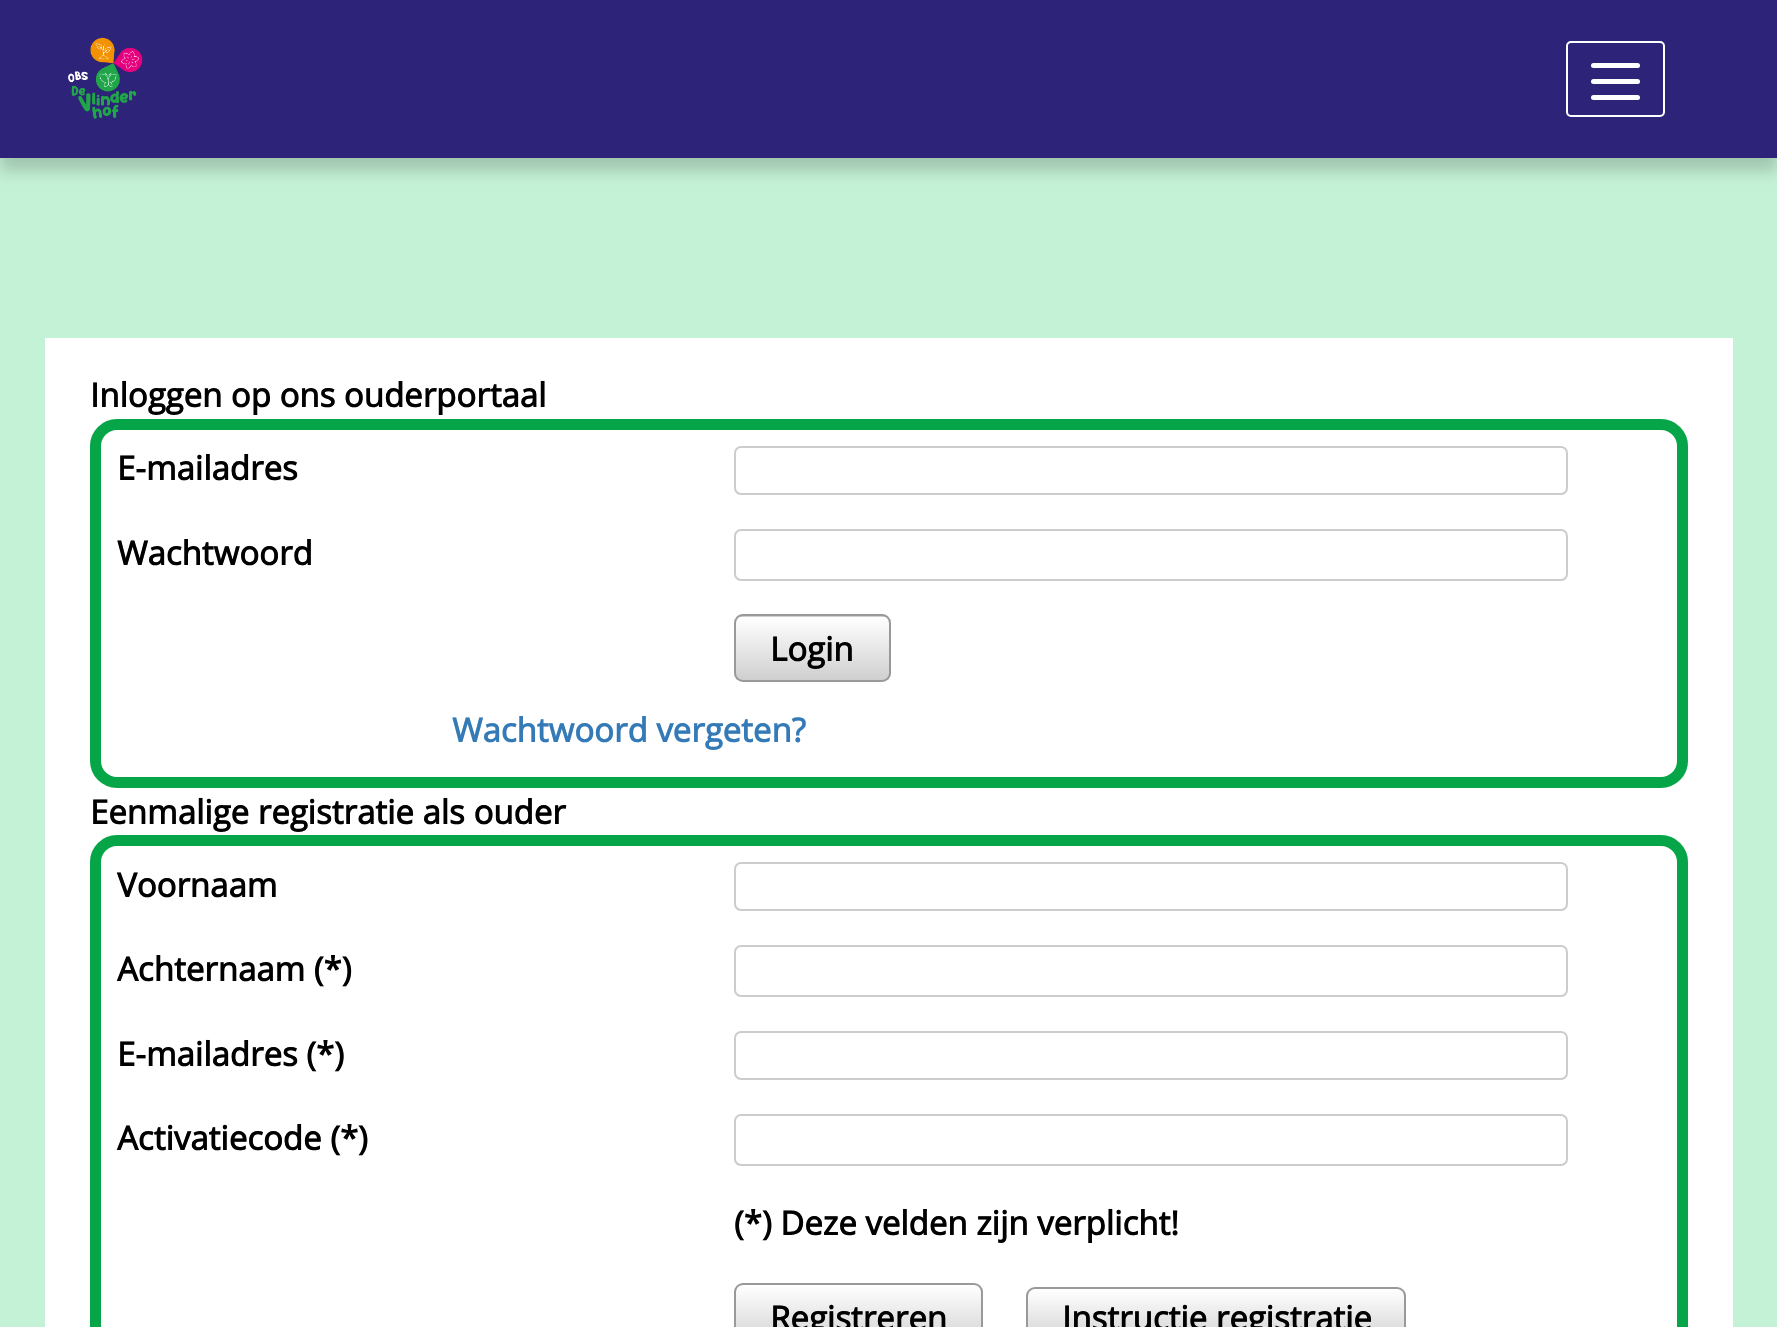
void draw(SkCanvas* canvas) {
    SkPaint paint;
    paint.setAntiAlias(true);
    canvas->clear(0xFFC4F2D6);
    paint.setColor(0x2E000000);
    paint.setMaskFilter(SkMaskFilter::MakeBlur(kNormal_SkBlurStyle, 7));
    canvas->drawRect(SkRect::MakeXYWH(0, 14, 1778, 157), paint);
    paint.setMaskFilter(nullptr);
    paint.setColor(0xFF2D2378);
    canvas->drawRect(SkRect::MakeXYWH(0, 0, 1777, 158), paint);
    canvas->drawImageRect(SkImages::DeferredFromEncodedData(SkData::MakeFromFileName("img1.png")), SkRect::MakeXYWH(67, 37, 76, 82), SkSamplingOptions());
    paint.setStyle(SkPaint::kStroke_Style);
    paint.setStrokeWidth(2);
    paint.setColor(0xFFFFFFFF);
    canvas->drawRoundRect(SkRect::MakeXYWH(1567, 42, 97, 74), 4, 4, paint);
    paint.setStyle(SkPaint::kFill_Style);
    canvas->drawRoundRect(SkRect::MakeXYWH(1591, 63, 49, 5), 2.5f, 2.5f, paint);
    canvas->drawRoundRect(SkRect::MakeXYWH(1591, 79, 49, 5), 2.5f, 2.5f, paint);
    canvas->drawRoundRect(SkRect::MakeXYWH(1591, 95, 49, 5), 2.5f, 2.5f, paint);
    canvas->drawRect(SkRect::MakeXYWH(45, 338, 1688, 989), paint);
    SkFont font1(fontMgr->matchFamilyStyle("Open Sans", SkFontStyle::Bold()), 33);
    font1.setSubpixel(true);
    paint.setColor(0xFF000000);
    canvas->drawString("Inloggen op ons ouderportaal", 90, 407, font1, paint);
    paint.setStyle(SkPaint::kStroke_Style);
    paint.setStrokeWidth(11);
    paint.setColor(0xFF06A648);
    canvas->drawRoundRect(SkRect::MakeXYWH(95.5f, 424.5f, 1587, 358), 21.5f, 21.5f, paint);
    paint.setStyle(SkPaint::kFill_Style);
    paint.setColor(0xFF000000);
    canvas->drawString("E-mailadres", 117, 480, font1, paint);
    paint.setStyle(SkPaint::kStroke_Style);
    paint.setStrokeWidth(2);
    paint.setColor(0xFFCCCCCC);
    canvas->drawRoundRect(SkRect::MakeXYWH(735, 447, 832, 47), 6, 6, paint);
    paint.setStyle(SkPaint::kFill_Style);
    paint.setColor(0xFF000000);
    canvas->drawString("Wachtwoord", 117, 565, font1, paint);
    paint.setStyle(SkPaint::kStroke_Style);
    paint.setColor(0xFFCCCCCC);
    canvas->drawRoundRect(SkRect::MakeXYWH(735, 530, 832, 50), 6, 6, paint);
    canvas->save();
    canvas->clipPath(SkPathBuilder().moveTo(743, 614).lineTo(882, 614).cubicTo(887, 614, 891, 618, 891, 623).lineTo(891, 673).cubicTo(891, 678, 887, 682, 882, 682).lineTo(743, 682).cubicTo(738, 682, 734, 678, 734, 673).lineTo(734, 623).cubicTo(734, 618, 738, 614, 743, 614).close().detach(), true);
    paint.setStyle(SkPaint::kFill_Style);
    {
        const SkColor colors[] = {0xFFFFFFFF, 0xFFCFCFCF};
        const float stops[] = {0, 1};
        const SkPoint ends[] = {{812, 554}, {812, 617}};
        paint.setShader(SkGradientShader::MakeLinear(ends, colors, stops, 2, SkTileMode::kClamp));
        paint.setAlpha(255);
    }
    canvas->drawRect(SkRect::MakeXYWH(734, 614, 157, 3), paint);
    {
        const SkColor colors[] = {0xFFFFFFFF, 0xFFCFCFCF};
        const float stops[] = {0, 1};
        const SkPoint ends[] = {{812, 617}, {812, 680}};
        paint.setShader(SkGradientShader::MakeLinear(ends, colors, stops, 2, SkTileMode::kClamp));
        paint.setAlpha(255);
    }
    canvas->drawRect(SkRect::MakeXYWH(734, 617, 157, 63), paint);
    canvas->restore();
    paint.setStyle(SkPaint::kStroke_Style);
    paint.setShader(nullptr);
    paint.setColor(0xFF999999);
    canvas->drawRoundRect(SkRect::MakeXYWH(735, 615, 155, 66), 8, 8, paint);
    paint.setStyle(SkPaint::kFill_Style);
    paint.setColor(0xFF000000);
    canvas->drawString("Login", 770, 661, font1, paint);
    paint.setColor(0xFF337AB7);
    canvas->drawString("Wachtwoord vergeten?", 452, 742, font1, paint);
    paint.setColor(0xFF000000);
    canvas->drawString("Eenmalige registratie als ouder", 90, 824, font1, paint);
    paint.setStyle(SkPaint::kStroke_Style);
    paint.setStrokeWidth(11);
    paint.setColor(0xFF06A648);
    canvas->drawRoundRect(SkRect::MakeXYWH(95.5f, 840.5f, 1587, 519), 21.5f, 21.5f, paint);
    paint.setStyle(SkPaint::kFill_Style);
    paint.setColor(0xFF000000);
    canvas->drawString("Voornaam", 117, 897, font1, paint);
    paint.setStyle(SkPaint::kStroke_Style);
    paint.setStrokeWidth(2);
    paint.setColor(0xFFCCCCCC);
    canvas->drawRoundRect(SkRect::MakeXYWH(735, 863, 832, 47), 6, 6, paint);
    paint.setStyle(SkPaint::kFill_Style);
    paint.setColor(0xFF000000);
    canvas->drawString("Achternaam (*)", 117, 981, font1, paint);
    paint.setStyle(SkPaint::kStroke_Style);
    paint.setColor(0xFFCCCCCC);
    canvas->drawRoundRect(SkRect::MakeXYWH(735, 946, 832, 50), 6, 6, paint);
    paint.setStyle(SkPaint::kFill_Style);
    paint.setColor(0xFF000000);
    canvas->drawString("E-mailadres (*)", 117, 1066, font1, paint);
    paint.setStyle(SkPaint::kStroke_Style);
    paint.setColor(0xFFCCCCCC);
    canvas->drawRoundRect(SkRect::MakeXYWH(735, 1032, 832, 47), 6, 6, paint);
    paint.setStyle(SkPaint::kFill_Style);
    paint.setColor(0xFF000000);
    canvas->drawString("Activatiecode (*)", 117, 1150, font1, paint);
    paint.setStyle(SkPaint::kStroke_Style);
    paint.setColor(0xFFCCCCCC);
    canvas->drawRoundRect(SkRect::MakeXYWH(735, 1115, 832, 50), 6, 6, paint);
    paint.setStyle(SkPaint::kFill_Style);
    paint.setColor(0xFF000000);
    canvas->drawString("(*) Deze velden zijn verplicht!", 734, 1235, font1, paint);
    canvas->save();
    canvas->clipPath(SkPathBuilder().moveTo(743, 1283).lineTo(974, 1283).cubicTo(979, 1283, 983, 1287, 983, 1292).lineTo(983, 1341).cubicTo(983, 1346, 979, 1350, 974, 1350).lineTo(743, 1350).cubicTo(738, 1350, 734, 1346, 734, 1341).lineTo(734, 1292).cubicTo(734, 1287, 738, 1283, 743, 1283).close().detach(), true);
    {
        const SkColor colors[] = {0xFFFFFFFF, 0xFFCFCFCF};
        const float stops[] = {0, 1};
        const SkPoint ends[] = {{858, 1285}, {858, 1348}};
        paint.setShader(SkGradientShader::MakeLinear(ends, colors, stops, 2, SkTileMode::kClamp));
        paint.setAlpha(255);
    }
    canvas->drawRect(SkRect::MakeXYWH(734, 1285, 249, 42), paint);
    canvas->restore();
    paint.setStyle(SkPaint::kStroke_Style);
    paint.setShader(nullptr);
    paint.setColor(0xFF999999);
    canvas->drawRoundRect(SkRect::MakeXYWH(735, 1284, 247, 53), 8, 8, paint);
    paint.setStyle(SkPaint::kFill_Style);
    paint.setColor(0xFF000000);
    canvas->drawString("Registreren", 770, 1330, font1, paint);
    canvas->save();
    canvas->clipPath(SkPathBuilder().moveTo(1035, 1287).lineTo(1397, 1287).cubicTo(1402, 1287, 1406, 1291, 1406, 1296).lineTo(1406, 1339).cubicTo(1406, 1344, 1402, 1348, 1397, 1348).lineTo(1035, 1348).cubicTo(1030, 1348, 1026, 1344, 1026, 1339).lineTo(1026, 1296).cubicTo(1026, 1291, 1030, 1287, 1035, 1287).close().detach(), true);
    {
        const SkColor colors[] = {0xFFFFFFFF, 0xFFCFCFCF};
        const float stops[] = {0, 1};
        const SkPoint ends[] = {{1216, 1289}, {1216, 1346}};
        paint.setShader(SkGradientShader::MakeLinear(ends, colors, stops, 2, SkTileMode::kClamp));
        paint.setAlpha(255);
    }
    canvas->drawRect(SkRect::MakeXYWH(1026, 1289, 380, 38), paint);
    canvas->restore();
    paint.setStyle(SkPaint::kStroke_Style);
    paint.setShader(nullptr);
    paint.setColor(0xFF999999);
    canvas->drawRoundRect(SkRect::MakeXYWH(1027, 1288, 378, 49), 8, 8, paint);
    paint.setStyle(SkPaint::kFill_Style);
    paint.setColor(0xFF000000);
    canvas->drawString("Instructie registratie", 1062, 1330, font1, paint);
}
